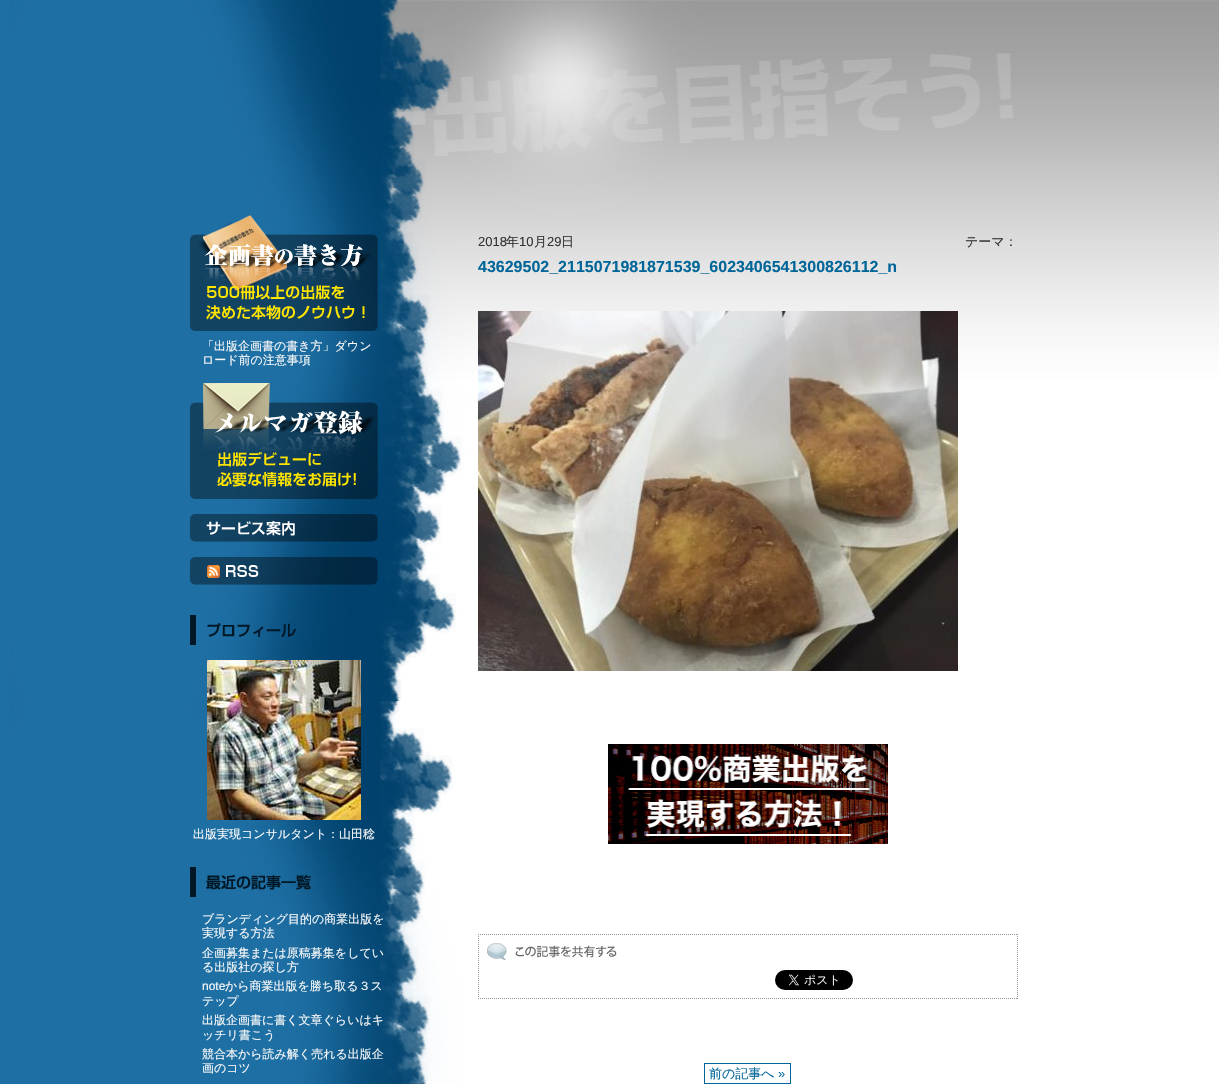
void draw(SkCanvas* canvas) {
    SkPaint paint;
    paint.setAntiAlias(true);
    canvas->clear(0xFFFFFFFF);
    canvas->drawImageRect(SkImages::DeferredFromEncodedData(SkData::MakeFromFileName("img1.png")), SkRect::MakeXYWH(0, 0, 462, 1084), SkSamplingOptions());
    canvas->drawImageRect(SkImages::DeferredFromEncodedData(SkData::MakeFromFileName("img2.png")), SkRect::MakeXYWH(346, 0, 873, 701), SkSamplingOptions());
    canvas->drawImageRect(SkImages::DeferredFromEncodedData(SkData::MakeFromFileName("img3.png")), SkRect::MakeXYWH(190, 215, 188, 116), SkSamplingOptions());
    SkFont font1(fontMgr->matchFamilyStyle("WenQuanYi Zen Hei", SkFontStyle(500, SkFontStyle::kNormal_Width, SkFontStyle::kUpright_Slant)), 12);
    font1.setSubpixel(true);
    paint.setColor(0xFFF9F9F9);
    canvas->drawString("「出版企画書の書き方」ダウン", 202, 350, font1, paint);
    canvas->drawString("ロード前の注意事項", 202, 364, font1, paint);
    canvas->drawImageRect(SkImages::DeferredFromEncodedData(SkData::MakeFromFileName("img4.png")), SkRect::MakeXYWH(190, 383, 188, 116), SkSamplingOptions());
    canvas->drawImageRect(SkImages::DeferredFromEncodedData(SkData::MakeFromFileName("img5.png")), SkRect::MakeXYWH(190, 514, 188, 28), SkSamplingOptions());
    canvas->drawImageRect(SkImages::DeferredFromEncodedData(SkData::MakeFromFileName("img6.png")), SkRect::MakeXYWH(190, 557, 188, 28), SkSamplingOptions());
    canvas->drawImageRect(SkImages::DeferredFromEncodedData(SkData::MakeFromFileName("img7.png")), SkRect::MakeXYWH(190, 615, 106, 30), SkSamplingOptions());
    canvas->drawImageRect(SkImages::DeferredFromEncodedData(SkData::MakeFromFileName("img8.png")), SkRect::MakeXYWH(207, 660, 154, 160), SkSamplingOptions());
    canvas->drawString("出版実現コンサルタント：山田稔", 193, 838, font1, paint);
    canvas->drawImageRect(SkImages::DeferredFromEncodedData(SkData::MakeFromFileName("img9.png")), SkRect::MakeXYWH(190, 867, 121, 30), SkSamplingOptions());
    canvas->drawString("ブランディング目的の商業出版を", 202, 923, font1, paint);
    canvas->drawString("実現する方法", 202, 937, font1, paint);
    canvas->drawString("企画募集または原稿募集をしてい", 202, 957, font1, paint);
    canvas->drawString("る出版社の探し方", 202, 971, font1, paint);
    SkFont font2(fontMgr->matchFamilyStyle("Liberation Sans", SkFontStyle::Normal()), 12);
    font2.setSubpixel(true);
    canvas->drawString("note", 202, 990, font2, paint);
    canvas->drawString("から商業出版を勝ち取る３ス", 225, 990, font1, paint);
    canvas->drawString("テップ", 202, 1005, font1, paint);
    canvas->drawString("出版企画書に書く文章ぐらいはキ", 202, 1024, font1, paint);
    canvas->drawString("ッチリ書こう", 202, 1039, font1, paint);
    canvas->drawString("競合本から読み解く売れる出版企", 202, 1058, font1, paint);
    canvas->drawString("画のコツ", 202, 1072, font1, paint);
    SkFont font3(fontMgr->matchFamilyStyle("Liberation Sans", SkFontStyle::Normal()), 13);
    font3.setSubpixel(true);
    paint.setColor(0xFF333333);
    canvas->drawString("2018", 478, 246, font3, paint);
    SkFont font4(fontMgr->matchFamilyStyle("WenQuanYi Zen Hei", SkFontStyle(500, SkFontStyle::kNormal_Width, SkFontStyle::kUpright_Slant)), 13);
    font4.setSubpixel(true);
    canvas->drawString("年", 506, 246, font4, paint);
    canvas->drawString("10", 519, 246, font3, paint);
    canvas->drawString("月", 534, 246, font4, paint);
    canvas->drawString("29", 547, 246, font3, paint);
    canvas->drawString("日", 561, 246, font4, paint);
    canvas->drawString("テーマ：", 965, 246, font4, paint);
    SkFont font5(fontMgr->matchFamilyStyle("Liberation Sans", SkFontStyle::Bold()), 16);
    font5.setSubpixel(true);
    paint.setColor(0xFF006699);
    canvas->drawString("43629502_2115071981871539_6023406541300826112_n", 478, 272, font5, paint);
    canvas->drawImageRect(SkImages::DeferredFromEncodedData(SkData::MakeFromFileName("img10.png")), SkRect::MakeXYWH(478, 311, 480, 360), SkSamplingOptions());
    canvas->drawImageRect(SkImages::DeferredFromEncodedData(SkData::MakeFromFileName("img11.png")), SkRect::MakeXYWH(608, 744, 280, 100), SkSamplingOptions());
    paint.setStyle(SkPaint::kStroke_Style);
    paint.setStrokeWidth(1);
    paint.setColor(0xFF999999);
    paint.setPathEffect(SkDashPathEffect::Make({{1, 1}}, 0));
    canvas->drawPath(SkPathBuilder().moveTo(478, 934.5f).lineTo(1018, 934.5f).detach(), paint);
    paint.setPathEffect(nullptr);
    paint.setPathEffect(SkDashPathEffect::Make({{1, 1}}, 0));
    canvas->drawPath(SkPathBuilder().moveTo(1017.5f, 934).lineTo(1017.5f, 999).detach(), paint);
    paint.setPathEffect(nullptr);
    paint.setPathEffect(SkDashPathEffect::Make({{1, 1}}, 0));
    canvas->drawPath(SkPathBuilder().moveTo(478, 998.5f).lineTo(1018, 998.5f).detach(), paint);
    paint.setPathEffect(nullptr);
    paint.setPathEffect(SkDashPathEffect::Make({{1, 1}}, 0));
    canvas->drawPath(SkPathBuilder().moveTo(478.5f, 934).lineTo(478.5f, 999).detach(), paint);
    paint.setPathEffect(nullptr);
    canvas->drawImageRect(SkImages::DeferredFromEncodedData(SkData::MakeFromFileName("img12.png")), SkRect::MakeXYWH(487, 943, 130, 17), SkSamplingOptions());
    canvas->drawImageRect(SkImages::DeferredFromEncodedData(SkData::MakeFromFileName("img13.png")), SkRect::MakeXYWH(775, 970, 78, 20), SkSamplingOptions());
    paint.setColor(0xFF006699);
    canvas->drawRect(SkRect::MakeXYWH(704.5f, 1063.5f, 86, 20), paint);
    paint.setStyle(SkPaint::kFill_Style);
    canvas->drawString("前の記事へ", 709, 1078, font4, paint);
    canvas->drawString("»", 778, 1078, font3, paint);
}
